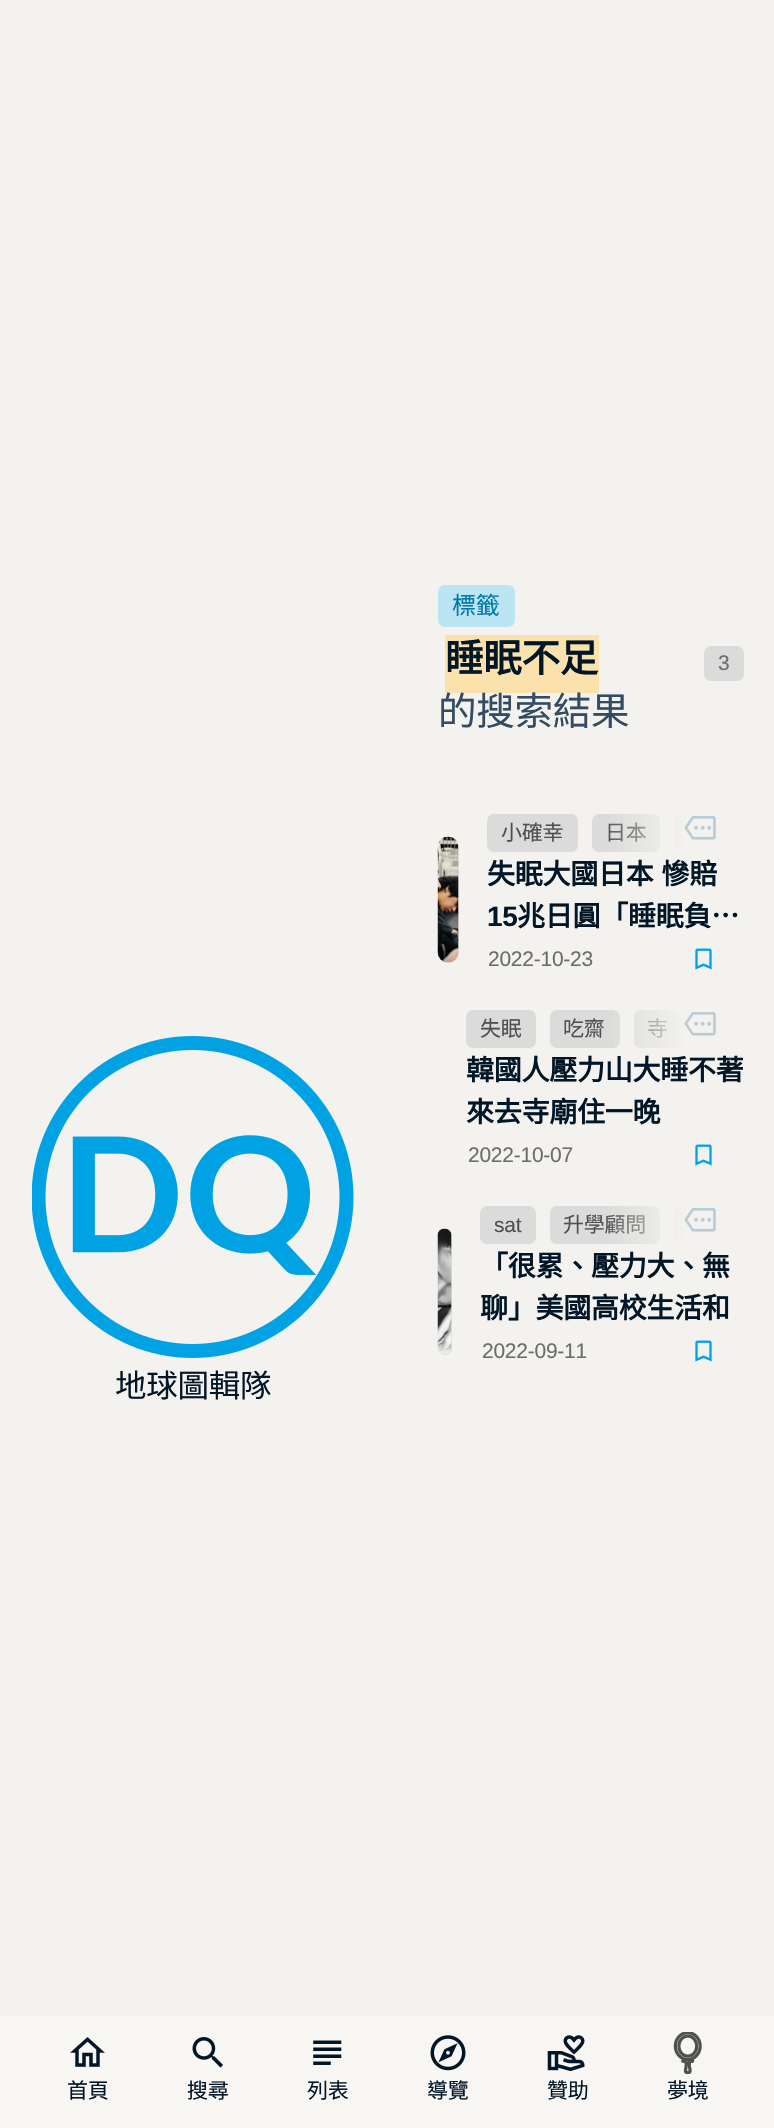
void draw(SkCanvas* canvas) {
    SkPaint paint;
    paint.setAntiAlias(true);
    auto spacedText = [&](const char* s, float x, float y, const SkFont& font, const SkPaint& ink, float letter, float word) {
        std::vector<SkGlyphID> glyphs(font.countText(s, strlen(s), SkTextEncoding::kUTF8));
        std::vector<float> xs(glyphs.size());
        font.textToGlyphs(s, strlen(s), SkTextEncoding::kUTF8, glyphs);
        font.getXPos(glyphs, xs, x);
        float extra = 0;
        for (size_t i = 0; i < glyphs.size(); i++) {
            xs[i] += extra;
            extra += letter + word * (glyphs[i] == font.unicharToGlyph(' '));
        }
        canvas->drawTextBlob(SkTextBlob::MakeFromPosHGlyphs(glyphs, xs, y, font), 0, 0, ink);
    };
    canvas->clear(0xFFF3F2EE);
    paint.setColor(0xFFBBE5F3);
    canvas->drawRoundRect(SkRect::MakeXYWH(438, 585, 77, 42), 7, 7, paint);
    SkFont font1(fontMgr->matchFamilyStyle("Noto Sans CJK TC", SkFontStyle::Normal()), 24);
    font1.setSubpixel(true);
    paint.setColor(0xFF0079AB);
    spacedText("標籤", 452, 614, font1, paint, -0.25f, 0);
    paint.setColor(0xFFFBE2AD);
    canvas->drawRect(SkRect::MakeXYWH(445, 635, 154, 58), paint);
    SkFont font2(fontMgr->matchFamilyStyle("Noto Sans CJK TC", SkFontStyle::Bold()), 38.5f);
    font2.setSubpixel(true);
    paint.setColor(0xFF011627);
    spacedText("睡眠不足", 445, 672, font2, paint, -0.25f, 0);
    SkFont font3(fontMgr->matchFamilyStyle("Noto Sans CJK TC", SkFontStyle::Normal()), 38.5f);
    font3.setSubpixel(true);
    paint.setColor(0xFF334C61);
    spacedText("的搜索結果", 438, 725, font3, paint, -0.25f, 0);
    paint.setColor(0xFFDBDBDB);
    canvas->drawRoundRect(SkRect::MakeXYWH(704, 646, 40, 35), 7, 7, paint);
    SkFont font4(fontMgr->matchFamilyStyle("Liberation Sans", SkFontStyle::Normal()), 21);
    font4.setSubpixel(true);
    paint.setColor(0xFF6C6C6D);
    spacedText("3", 718, 670, font4, paint, -0.25f, 0);
    paint.setColor(0xFFDBDBDB);
    canvas->drawRoundRect(SkRect::MakeXYWH(438, 837, 21, 126), 10.5f, 10.5f, paint);
    canvas->drawImageRect(SkImages::DeferredFromEncodedData(SkData::MakeFromFileName("img1.png")), SkRect::MakeXYWH(437, 836, 22, 127), SkSamplingOptions());
    canvas->drawRoundRect(SkRect::MakeXYWH(674, 814, 70, 38), 7, 7, paint);
    canvas->drawRoundRect(SkRect::MakeXYWH(592, 814, 68, 38), 7, 7, paint);
    SkFont font5(fontMgr->matchFamilyStyle("Noto Sans CJK TC", SkFontStyle::Normal()), 21);
    font5.setSubpixel(true);
    paint.setColor(0xFF505050);
    spacedText("日本", 605, 840, font5, paint, -0.25f, 0);
    {
        const SkColor colors[] = {0xFFF3F2EE, 0x00F3F2EE};
        const float stops[] = {0.22f, 0.54f};
        const SkPoint ends[] = {{744, 836}, {487, 836}};
        paint.setShader(SkGradientShader::MakeLinear(ends, colors, stops, 2, SkTileMode::kClamp));
        paint.setAlpha(255);
    }
    canvas->drawRect(SkRect::MakeXYWH(608, 814, 136, 38), paint);
    paint.setShader(nullptr);
    paint.setColor(0xFFDBDBDB);
    canvas->drawRoundRect(SkRect::MakeXYWH(487, 814, 91, 38), 7, 7, paint);
    paint.setColor(0xFF505050);
    spacedText("小確幸", 501, 840, font5, paint, -0.25f, 0);
    canvas->drawImageRect(SkImages::DeferredFromEncodedData(SkData::MakeFromFileName("img2.png")), SkRect::MakeXYWH(684, 816, 32, 24), SkSamplingOptions());
    SkFont font6(fontMgr->matchFamilyStyle("Noto Sans CJK TC", SkFontStyle::Bold()), 28);
    font6.setSubpixel(true);
    paint.setColor(0xFF011627);
    spacedText("失眠大國日本 慘賠", 487, 884, font6, paint, -0.25f, 2);
    SkFont font7(fontMgr->matchFamilyStyle("Liberation Sans", SkFontStyle::Bold()), 28);
    font7.setSubpixel(true);
    spacedText("15", 487, 926, font7, paint, -0.25f, 0);
    spacedText("兆日圓「睡眠負…", 517, 926, font6, paint, -0.25f, 0);
    paint.setColor(0xFF6C6C6D);
    spacedText("2022-10-23", 488, 966, font4, paint, -0.25f, 0);
    canvas->drawImageRect(SkImages::DeferredFromEncodedData(SkData::MakeFromFileName("img3.png")), SkRect::MakeXYWH(695, 948, 17, 22), SkSamplingOptions());
    paint.setColor(0xFFDBDBDB);
    canvas->drawRoundRect(SkRect::MakeXYWH(550, 1010, 70, 38), 7, 7, paint);
    canvas->drawRoundRect(SkRect::MakeXYWH(634, 1010, 110, 38), 7, 7, paint);
    paint.setColor(0xFF505050);
    spacedText("寺", 647, 1036, font5, paint, -0.25f, 0);
    {
        const SkColor colors[] = {0xFFF3F2EE, 0x00F3F2EE};
        const float stops[] = {0.2f, 0.5f};
        const SkPoint ends[] = {{744, 1032}, {466, 1032}};
        paint.setShader(SkGradientShader::MakeLinear(ends, colors, stops, 2, SkTileMode::kClamp));
        paint.setAlpha(255);
    }
    canvas->drawRect(SkRect::MakeXYWH(613, 1010, 131, 38), paint);
    paint.setShader(nullptr);
    paint.setColor(0xFFDBDBDB);
    canvas->drawRoundRect(SkRect::MakeXYWH(466, 1010, 70, 38), 7, 7, paint);
    paint.setColor(0xFF505050);
    spacedText("失眠", 480, 1036, font5, paint, -0.25f, 0);
    spacedText("吃齋", 563, 1036, font5, paint, -0.25f, 0);
    canvas->drawImageRect(SkImages::DeferredFromEncodedData(SkData::MakeFromFileName("img4.png")), SkRect::MakeXYWH(684, 1012, 32, 24), SkSamplingOptions());
    paint.setColor(0xFF011627);
    spacedText("韓國人壓力山大睡不著", 466, 1080, font6, paint, -0.25f, 0);
    spacedText("來去寺廟住一晚", 466, 1122, font6, paint, -0.25f, 0);
    paint.setColor(0xFF6C6C6D);
    spacedText("2022-10-07", 468, 1162, font4, paint, -0.25f, 0);
    canvas->drawImageRect(SkImages::DeferredFromEncodedData(SkData::MakeFromFileName("img3.png")), SkRect::MakeXYWH(695, 1144, 17, 22), SkSamplingOptions());
    paint.setColor(0xFFDBDBDB);
    canvas->drawRoundRect(SkRect::MakeXYWH(438, 1229, 14, 126), 7, 7, paint);
    canvas->drawImageRect(SkImages::DeferredFromEncodedData(SkData::MakeFromFileName("img5.png")), SkRect::MakeXYWH(437, 1228, 15, 126), SkSamplingOptions());
    canvas->drawRoundRect(SkRect::MakeXYWH(674, 1206, 70, 38), 7, 7, paint);
    canvas->drawRoundRect(SkRect::MakeXYWH(550, 1206, 110, 38), 7, 7, paint);
    paint.setColor(0xFF505050);
    spacedText("升學顧問", 563, 1232, font5, paint, -0.25f, 0);
    {
        const SkColor colors[] = {0xFFF3F2EE, 0x00F3F2EE};
        const float stops[] = {0.21f, 0.53f};
        const SkPoint ends[] = {{744, 1228}, {480, 1228}};
        paint.setShader(SkGradientShader::MakeLinear(ends, colors, stops, 2, SkTileMode::kClamp));
        paint.setAlpha(255);
    }
    canvas->drawRect(SkRect::MakeXYWH(606, 1206, 138, 38), paint);
    paint.setShader(nullptr);
    paint.setColor(0xFFDBDBDB);
    canvas->drawRoundRect(SkRect::MakeXYWH(480, 1206, 56, 38), 7, 7, paint);
    paint.setColor(0xFF505050);
    spacedText("sat", 494, 1232, font4, paint, -0.25f, 0);
    canvas->drawImageRect(SkImages::DeferredFromEncodedData(SkData::MakeFromFileName("img6.png")), SkRect::MakeXYWH(684, 1208, 32, 24), SkSamplingOptions());
    paint.setColor(0xFF011627);
    spacedText("「很累、壓力大、無", 480, 1276, font6, paint, -0.25f, 0);
    spacedText("聊」美國高校生活和", 480, 1318, font6, paint, -0.25f, 0);
    paint.setColor(0xFF6C6C6D);
    spacedText("2022-09-11", 482, 1358, font4, paint, -0.25f, 0);
    canvas->drawImageRect(SkImages::DeferredFromEncodedData(SkData::MakeFromFileName("img3.png")), SkRect::MakeXYWH(695, 1340, 17, 22), SkSamplingOptions());
    canvas->drawImageRect(SkImages::DeferredFromEncodedData(SkData::MakeFromFileName("img7.png")), SkRect::MakeXYWH(32, 1036, 322, 322), SkSamplingOptions());
    SkFont font8(fontMgr->matchFamilyStyle("Noto Sans CJK TC", SkFontStyle::Normal()), 31.5f);
    font8.setSubpixel(true);
    paint.setColor(0xFF011627);
    spacedText("地球圖輯隊", 115, 1397, font8, paint, -0.25f, 0);
    paint.setColor(0xFFF7F6F3);
    canvas->drawRect(SkRect::MakeXYWH(0, 2016, 774, 112), paint);
    canvas->drawImageRect(SkImages::DeferredFromEncodedData(SkData::MakeFromFileName("img8.png")), SkRect::MakeXYWH(70, 2037, 35, 30), SkSamplingOptions());
    paint.setColor(0xFF011627);
    spacedText("首頁", 67, 2098, font5, paint, -0.25f, 0);
    canvas->drawImageRect(SkImages::DeferredFromEncodedData(SkData::MakeFromFileName("img9.png")), SkRect::MakeXYWH(192, 2037, 31, 31), SkSamplingOptions());
    spacedText("搜尋", 187, 2098, font5, paint, -0.25f, 0);
    canvas->drawImageRect(SkImages::DeferredFromEncodedData(SkData::MakeFromFileName("img10.png")), SkRect::MakeXYWH(313, 2040, 29, 25), SkSamplingOptions());
    spacedText("列表", 307, 2098, font5, paint, -0.25f, 0);
    canvas->drawImageRect(SkImages::DeferredFromEncodedData(SkData::MakeFromFileName("img11.png")), SkRect::MakeXYWH(430, 2035, 36, 36), SkSamplingOptions());
    spacedText("導覽", 427, 2098, font5, paint, -0.25f, 0);
    canvas->drawImageRect(SkImages::DeferredFromEncodedData(SkData::MakeFromFileName("img12.png")), SkRect::MakeXYWH(547, 2035, 38, 37), SkSamplingOptions());
    spacedText("贊助", 547, 2098, font5, paint, -0.25f, 0);
    canvas->drawImageRect(SkImages::DeferredFromEncodedData(SkData::MakeFromFileName("img13.png")), SkRect::MakeXYWH(673, 2032, 29, 42), SkSamplingOptions());
    spacedText("夢境", 667, 2098, font5, paint, -0.25f, 0);
}
